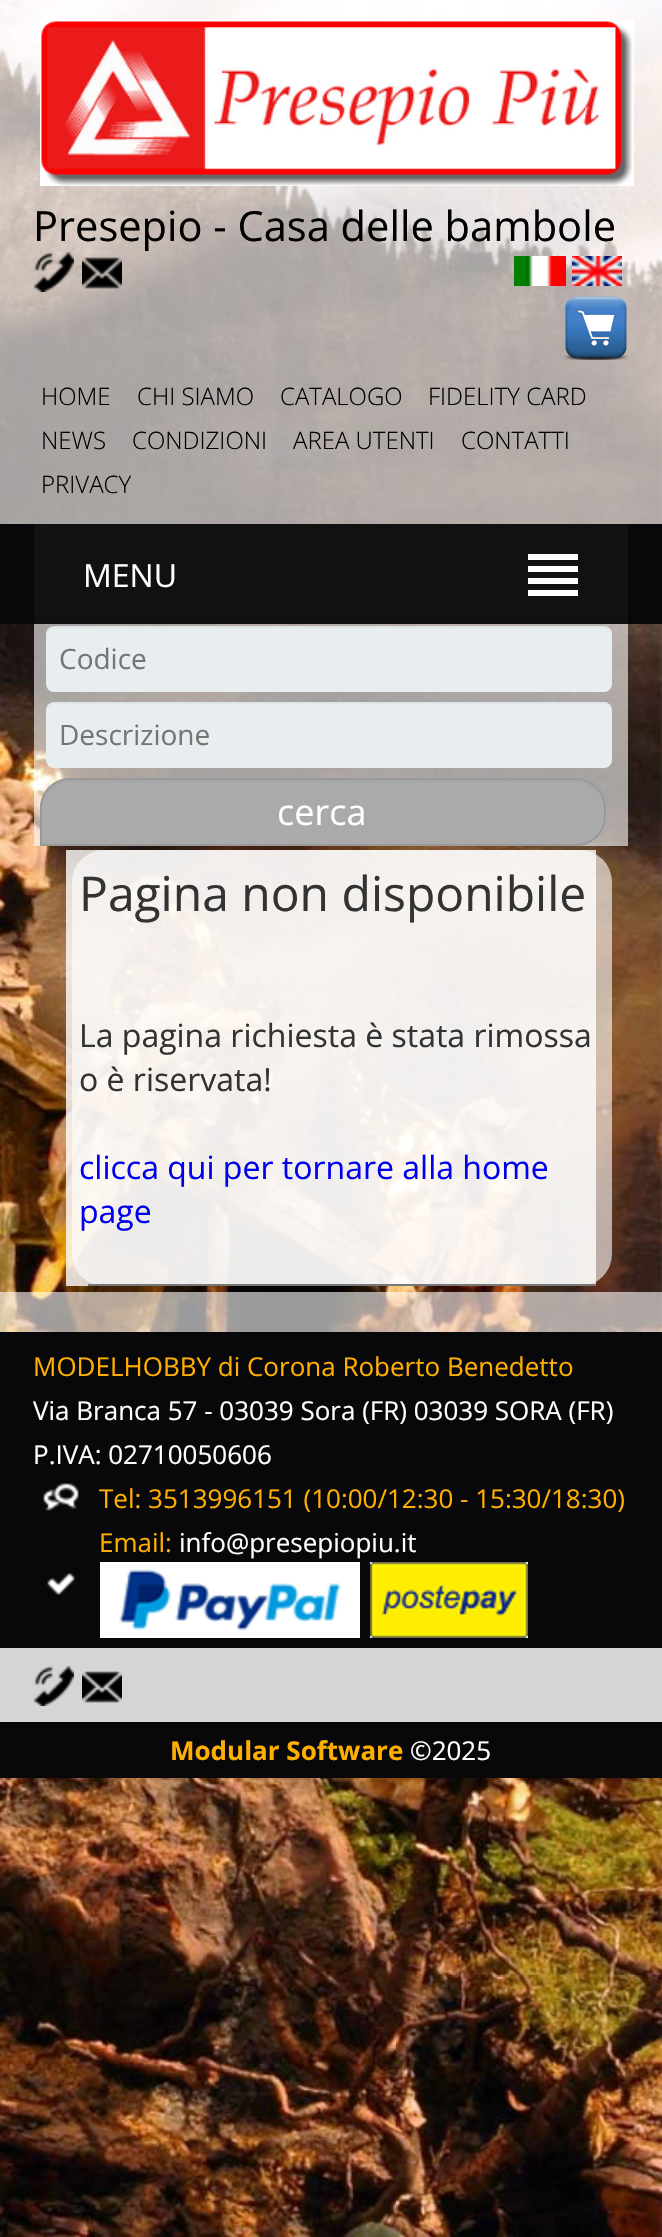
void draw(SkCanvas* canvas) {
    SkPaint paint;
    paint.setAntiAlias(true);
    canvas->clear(0xFFFFFFFF);
    canvas->drawImageRect(SkImages::DeferredFromEncodedData(SkData::MakeFromFileName("img1.png")), SkRect::MakeXYWH(0, 0, 662, 2237), SkSamplingOptions());
    paint.setColor(0x99FFFFFF);
    canvas->drawRect(SkRect::MakeXYWH(0, 0, 662, 524), paint);
    canvas->drawImageRect(SkImages::DeferredFromEncodedData(SkData::MakeFromFileName("img2.png")), SkRect::MakeXYWH(40, 20, 594, 166), SkSamplingOptions());
    SkFont font1(fontMgr->matchFamilyStyle("Open Sans", SkFontStyle::Normal()), 41.6f);
    font1.setSubpixel(true);
    paint.setColor(0xFF000000);
    canvas->drawString("Presepio - Casa delle bambole", 33, 241, font1, paint);
    canvas->drawImageRect(SkImages::DeferredFromEncodedData(SkData::MakeFromFileName("img3.png")), SkRect::MakeXYWH(34, 252, 40, 40), SkSamplingOptions());
    canvas->drawImageRect(SkImages::DeferredFromEncodedData(SkData::MakeFromFileName("img4.png")), SkRect::MakeXYWH(82, 257, 40, 32), SkSamplingOptions());
    canvas->drawImageRect(SkImages::DeferredFromEncodedData(SkData::MakeFromFileName("img5.png")), SkRect::MakeXYWH(514, 256, 52, 30), SkSamplingOptions());
    canvas->drawImageRect(SkImages::DeferredFromEncodedData(SkData::MakeFromFileName("img6.png")), SkRect::MakeXYWH(572, 256, 50, 30), SkSamplingOptions());
    canvas->drawImageRect(SkImages::DeferredFromEncodedData(SkData::MakeFromFileName("img7.png")), SkRect::MakeXYWH(564, 296, 64, 64), SkSamplingOptions());
    SkFont font2(fontMgr->matchFamilyStyle("Open Sans", SkFontStyle(300, SkFontStyle::kNormal_Width, SkFontStyle::kUpright_Slant)), 24);
    font2.setSubpixel(true);
    canvas->drawString("HOME", 41, 405, font2, paint);
    canvas->drawString("CHI SIAMO", 137, 405, font2, paint);
    canvas->drawString("CATALOGO", 280, 405, font2, paint);
    canvas->drawString("FIDELITY CARD", 428, 405, font2, paint);
    canvas->drawString("NEWS", 41, 449, font2, paint);
    canvas->drawString("CONDIZIONI", 132, 449, font2, paint);
    canvas->drawString("AREA UTENTI", 293, 449, font2, paint);
    canvas->drawString("CONTATTI", 461, 449, font2, paint);
    canvas->drawString("PRIVACY", 41, 493, font2, paint);
    paint.setColor(0xFF08080B);
    canvas->drawRect(SkRect::MakeXYWH(0, 524, 662, 100), paint);
    paint.setColor(0xFF111111);
    canvas->drawRect(SkRect::MakeXYWH(34, 524, 594, 98), paint);
    paint.setColor(0xFF0F0F0F);
    canvas->drawRect(SkRect::MakeXYWH(34, 622, 594, 2), paint);
    SkFont font3(fontMgr->matchFamilyStyle("Open Sans", SkFontStyle::Normal()), 32);
    font3.setSubpixel(true);
    paint.setColor(0xFFFFFFFF);
    canvas->drawString("MENU", 83, 587, font3, paint);
    canvas->drawRect(SkRect::MakeXYWH(528, 554, 50, 6), paint);
    canvas->drawRect(SkRect::MakeXYWH(528, 566, 50, 6), paint);
    canvas->drawRect(SkRect::MakeXYWH(528, 578, 50, 6), paint);
    canvas->drawRect(SkRect::MakeXYWH(528, 590, 50, 6), paint);
    paint.setColor(0x99FFFFFF);
    canvas->drawRect(SkRect::MakeXYWH(34, 624, 594, 222), paint);
    paint.setColor(0xFFE8EEEF);
    canvas->drawRoundRect(SkRect::MakeXYWH(46, 626, 566, 66), 8, 8, paint);
    paint.setColor(0x08000000);
    canvas->drawPath(SkPathBuilder().moveTo(54, 628).lineTo(604, 628).cubicTo(608, 628, 612, 632, 612, 636).cubicTo(612, 631, 610, 626, 604, 626).lineTo(54, 626).cubicTo(48, 626, 46, 631, 46, 636).cubicTo(46, 632, 50, 628, 54, 628).close().detach(), paint);
    SkFont font4(fontMgr->matchFamilyStyle("Open Sans", SkFontStyle::Normal()), 28);
    font4.setSubpixel(true);
    paint.setColor(0xFF757575);
    canvas->drawString("Codice", 59, 669, font4, paint);
    paint.setColor(0xFFE8EEEF);
    canvas->drawRoundRect(SkRect::MakeXYWH(46, 702, 566, 66), 8, 8, paint);
    paint.setColor(0x08000000);
    canvas->drawPath(SkPathBuilder().moveTo(54, 704).lineTo(604, 704).cubicTo(608, 704, 612, 708, 612, 712).cubicTo(612, 707, 610, 702, 604, 702).lineTo(54, 702).cubicTo(48, 702, 46, 707, 46, 712).cubicTo(46, 708, 50, 704, 54, 704).close().detach(), paint);
    paint.setColor(0xFF757575);
    canvas->drawString("Descrizione", 59, 745, font4, paint);
    paint.setColor(0xFFAAAAAA);
    canvas->drawPath(SkPathBuilder().moveTo(70, 778).lineTo(576, 778).cubicTo(592.5f, 778, 606, 791.5f, 606, 808).lineTo(606, 816).cubicTo(606, 832.5f, 592.5f, 846, 576, 846).lineTo(40, 846).lineTo(40, 808).cubicTo(40, 791.5f, 53.5f, 778, 70, 778).close().detach(), paint);
    paint.setColor(0xFFA5A5A5);
    canvas->drawPath(SkPathBuilder().moveTo(70, 782).lineTo(576, 782).cubicTo(591, 782, 604, 795, 604, 810).lineTo(604, 808).cubicTo(604, 793, 591, 780, 576, 780).lineTo(70, 780).cubicTo(55, 780, 42, 793, 42, 808).lineTo(42, 810).cubicTo(42, 795, 55, 782, 70, 782).close().detach(), paint);
    paint.setStyle(SkPaint::kStroke_Style);
    paint.setStrokeWidth(2);
    paint.setColor(0xFF999999);
    canvas->drawPath(SkPathBuilder().moveTo(70, 779).lineTo(576, 779).cubicTo(592, 779, 605, 792, 605, 808).lineTo(605, 816).cubicTo(605, 832, 592, 845, 576, 845).lineTo(41, 845).lineTo(41, 808).cubicTo(41, 792, 54, 779, 70, 779).close().detach(), paint);
    SkFont font5(fontMgr->matchFamilyStyle("Open Sans", SkFontStyle::Normal()), 36);
    font5.setSubpixel(true);
    paint.setStyle(SkPaint::kFill_Style);
    paint.setColor(0xFFFFFFFF);
    canvas->drawString("cerca", 277, 825, font5, paint);
    paint.setColor(0xCCFFFFFF);
    canvas->drawRect(SkRect::MakeXYWH(66, 850, 530, 436), paint);
    canvas->drawImageRect(SkImages::DeferredFromEncodedData(SkData::MakeFromFileName("img8.png")), SkRect::MakeXYWH(72, 850, 540, 434), SkSamplingOptions());
    paint.setColor(0xFF777777);
    canvas->drawRect(SkRect::MakeXYWH(88, 1284, 508, 2), paint);
    SkFont font6(fontMgr->matchFamilyStyle("Open Sans", SkFontStyle::Normal()), 48);
    font6.setSubpixel(true);
    paint.setColor(0xFF333333);
    canvas->drawString("Pagina non disponibile", 79, 911, font6, paint);
    canvas->drawString("La pagina richiesta è stata rimossa", 79, 1047, font3, paint);
    canvas->drawString("o è riservata!", 79, 1091, font3, paint);
    paint.setColor(0xFF0000EE);
    canvas->drawString("clicca qui per tornare alla home", 79, 1179, font3, paint);
    canvas->drawString("page", 79, 1223, font3, paint);
    paint.setColor(0x99FFFFFF);
    canvas->drawRect(SkRect::MakeXYWH(0, 1292, 662, 40), paint);
    paint.setColor(0xFF08080B);
    canvas->drawRect(SkRect::MakeXYWH(0, 1332, 662, 316), paint);
    SkFont font7(fontMgr->matchFamilyStyle("Open Sans", SkFontStyle::Normal()), 26);
    font7.setSubpixel(true);
    paint.setColor(0xFFFFAF02);
    canvas->drawString("MODELHOBBY di Corona Roberto Benedetto", 33, 1376, font7, paint);
    paint.setColor(0xFFFFFFFF);
    canvas->drawString("Via Branca 57 - 03039 Sora (FR) 03039 SORA (FR)", 33, 1420, font7, paint);
    canvas->drawString("P.IVA: 02710050606", 33, 1464, font7, paint);
    canvas->drawImageRect(SkImages::DeferredFromEncodedData(SkData::MakeFromFileName("img9.png")), SkRect::MakeXYWH(43, 1483, 36, 28), SkSamplingOptions());
    paint.setColor(0xFFFFAF02);
    canvas->drawString("Tel: 3513996151 (10:00/12:30 - 15:30/18:30)", 99, 1508, font7, paint);
    canvas->drawString("Email:", 99, 1552, font7, paint);
    paint.setColor(0xFFFFFFFF);
    canvas->drawString("info@presepiopiu.it", 179, 1552, font7, paint);
    canvas->drawImageRect(SkImages::DeferredFromEncodedData(SkData::MakeFromFileName("img10.png")), SkRect::MakeXYWH(47, 1573, 28, 22), SkSamplingOptions());
    canvas->drawImageRect(SkImages::DeferredFromEncodedData(SkData::MakeFromFileName("img11.png")), SkRect::MakeXYWH(100, 1562, 260, 76), SkSamplingOptions());
    canvas->drawImageRect(SkImages::DeferredFromEncodedData(SkData::MakeFromFileName("img12.png")), SkRect::MakeXYWH(370, 1562, 158, 76), SkSamplingOptions());
    paint.setColor(0xFFD5D5D5);
    canvas->drawRect(SkRect::MakeXYWH(0, 1648, 662, 74), paint);
    canvas->drawImageRect(SkImages::DeferredFromEncodedData(SkData::MakeFromFileName("img13.png")), SkRect::MakeXYWH(34, 1666, 40, 40), SkSamplingOptions());
    canvas->drawImageRect(SkImages::DeferredFromEncodedData(SkData::MakeFromFileName("img14.png")), SkRect::MakeXYWH(82, 1671, 40, 32), SkSamplingOptions());
    paint.setColor(0xFF08080B);
    canvas->drawRect(SkRect::MakeXYWH(0, 1722, 662, 56), paint);
    SkFont font8(fontMgr->matchFamilyStyle("Open Sans", SkFontStyle::Bold()), 26);
    font8.setSubpixel(true);
    paint.setColor(0xFFFFAF02);
    canvas->drawString("Modular Software", 170, 1760, font8, paint);
    paint.setColor(0xFFFFFFFF);
    canvas->drawString("©2025", 410, 1760, font7, paint);
}
